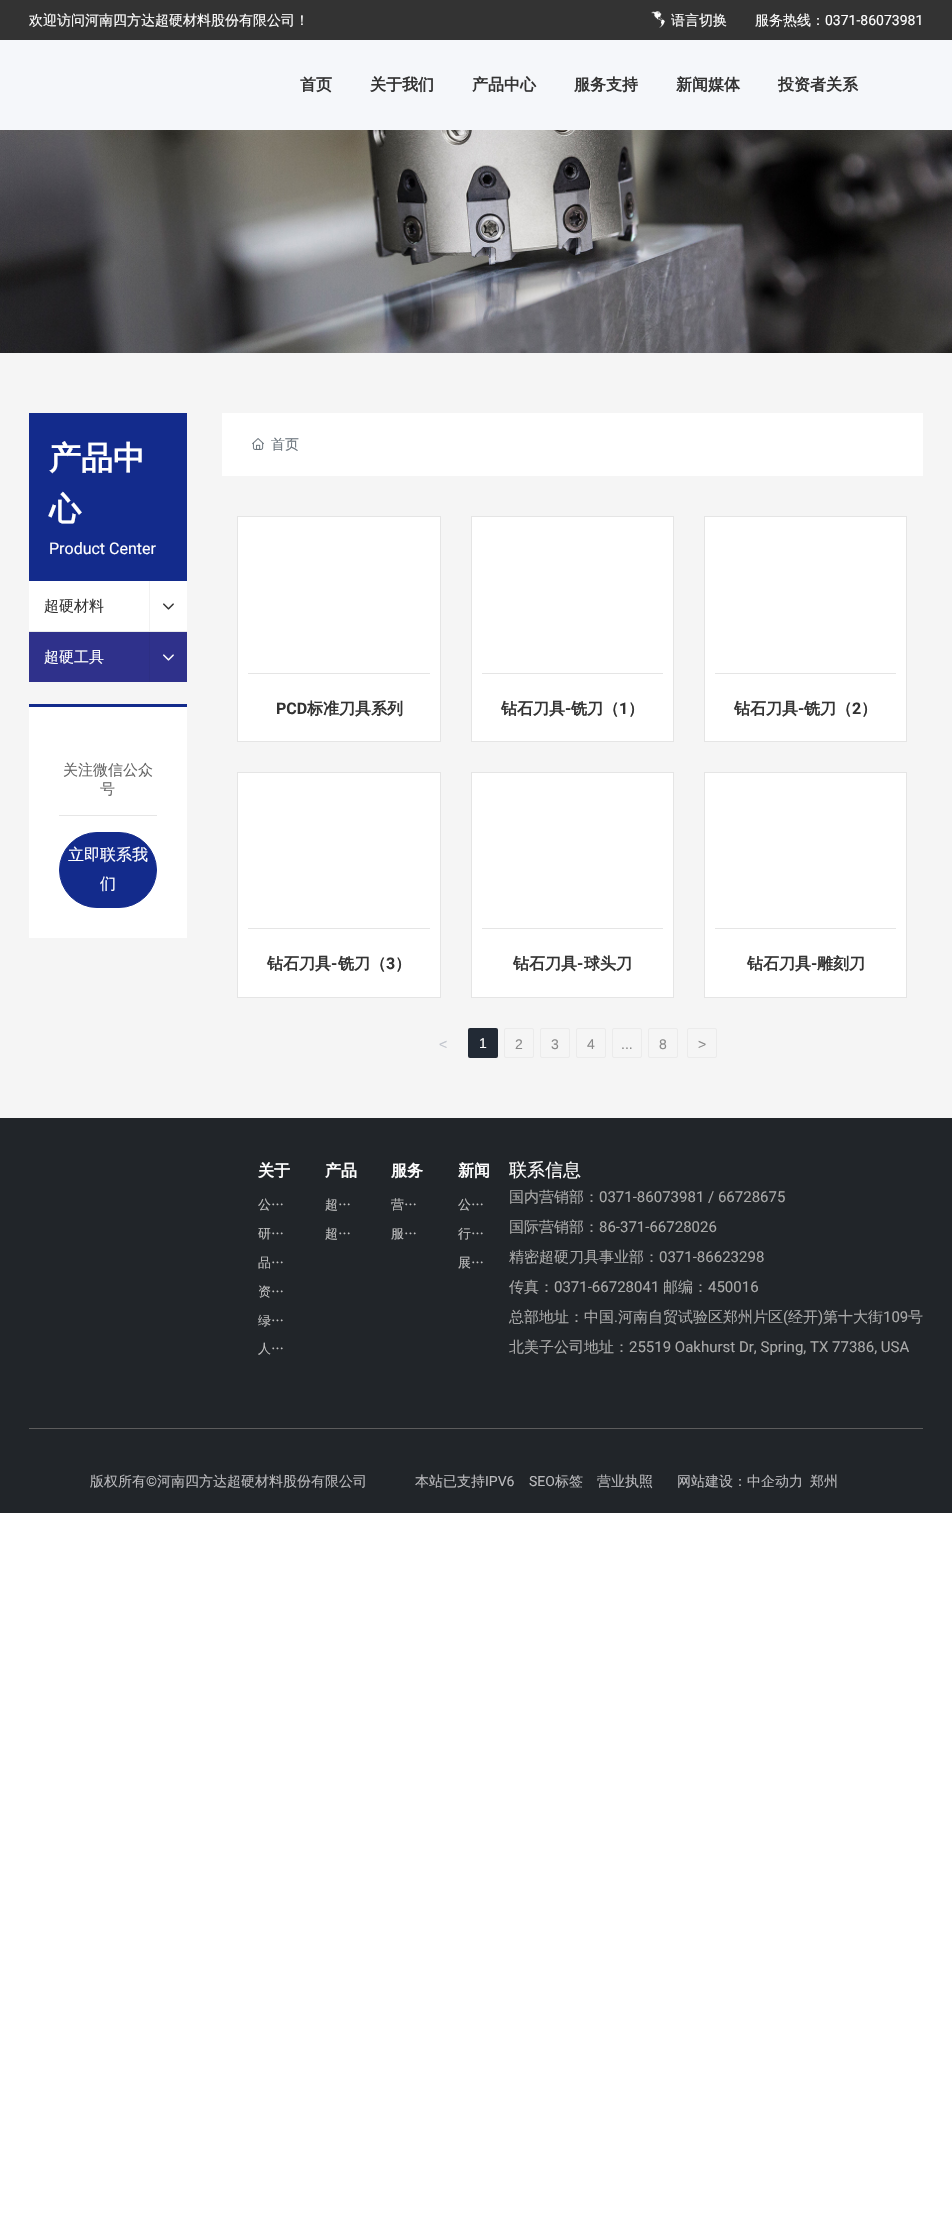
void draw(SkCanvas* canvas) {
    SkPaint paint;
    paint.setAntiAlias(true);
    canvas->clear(0xFFFFFFFF);
    paint.setColor(0xFFF5F7FA);
    canvas->drawRect(SkRect::MakeXYWH(0, 40, 952, 90), paint);
    paint.setColor(0xFF333333);
    canvas->drawRect(SkRect::MakeXYWH(0, 0, 952, 40), paint);
    SkFont font1(fontMgr->matchFamilyStyle("WenQuanYi Zen Hei", SkFontStyle(500, SkFontStyle::kNormal_Width, SkFontStyle::kUpright_Slant)), 14);
    font1.setSubpixel(true);
    paint.setColor(0xFFFFFFFF);
    canvas->drawString("欢迎访问河南四方达超硬材料股份有限公司！", 29, 25, font1, paint);
    canvas->drawImageRect(SkImages::DeferredFromEncodedData(SkData::MakeFromFileName("img1.png")), SkRect::MakeXYWH(651, 11, 14, 17), SkSamplingOptions());
    canvas->drawString("语言切换", 671, 25, font1, paint);
    canvas->drawString("服务热线：", 755, 25, font1, paint);
    SkFont font2(fontMgr->matchFamilyStyle("Roboto", SkFontStyle::Normal()), 14);
    font2.setSubpixel(true);
    canvas->drawString("0371-86073981", 825, 25, font2, paint);
    SkFont font3(fontMgr->matchFamilyStyle("WenQuanYi Zen Hei", SkFontStyle::Bold()), 16);
    font3.setSubpixel(true);
    paint.setColor(0xFF333333);
    canvas->drawString("首页", 300, 90, font3, paint);
    canvas->drawString("关于我们", 370, 90, font3, paint);
    canvas->drawString("产品中心", 472, 90, font3, paint);
    canvas->drawString("服务支持", 574, 90, font3, paint);
    canvas->drawString("新闻媒体", 676, 90, font3, paint);
    canvas->drawString("投资者关系", 778, 90, font3, paint);
    canvas->drawImageRect(SkImages::DeferredFromEncodedData(SkData::MakeFromFileName("img2.png")), SkRect::MakeXYWH(0, 130, 952, 223), SkSamplingOptions());
    paint.setColor(0xFFF5F5F5);
    canvas->drawRect(SkRect::MakeXYWH(0, 353, 952, 765), paint);
    paint.setColor(0xFF132B8C);
    canvas->drawRect(SkRect::MakeXYWH(29, 413, 158, 168), paint);
    SkFont font4(fontMgr->matchFamilyStyle("WenQuanYi Zen Hei", SkFontStyle::Bold()), 32);
    font4.setSubpixel(true);
    paint.setColor(0xFFFFFFFF);
    canvas->drawString("产品中", 49, 469, font4, paint);
    canvas->drawString("心", 49, 520, font4, paint);
    SkFont font5(fontMgr->matchFamilyStyle("Roboto", SkFontStyle::Normal()), 16);
    font5.setSubpixel(true);
    canvas->drawString("Product Center", 49, 554, font5, paint);
    canvas->drawRect(SkRect::MakeXYWH(29, 581, 158, 50), paint);
    paint.setColor(0xFFEBEBEB);
    canvas->drawRect(SkRect::MakeXYWH(29, 631, 158, 1), paint);
    SkFont font6(fontMgr->matchFamilyStyle("WenQuanYi Zen Hei", SkFontStyle(500, SkFontStyle::kNormal_Width, SkFontStyle::kUpright_Slant)), 15);
    font6.setSubpixel(true);
    paint.setColor(0xFF333333);
    canvas->drawString("超硬材料", 44, 611, font6, paint);
    paint.setColor(0xFFF2F2F2);
    canvas->drawRect(SkRect::MakeXYWH(149, 581, 1, 50), paint);
    canvas->drawImageRect(SkImages::DeferredFromEncodedData(SkData::MakeFromFileName("img3.png")), SkRect::MakeXYWH(163, 603, 11, 7), SkSamplingOptions());
    paint.setColor(0xFF2F318B);
    canvas->drawRect(SkRect::MakeXYWH(29, 632, 158, 50), paint);
    paint.setColor(0xFFFFFFFF);
    canvas->drawString("超硬工具", 44, 662, font6, paint);
    paint.setColor(0xFF2D2F84);
    canvas->drawRect(SkRect::MakeXYWH(149, 632, 1, 50), paint);
    canvas->drawImageRect(SkImages::DeferredFromEncodedData(SkData::MakeFromFileName("img4.png")), SkRect::MakeXYWH(163, 654, 11, 7), SkSamplingOptions());
    paint.setColor(0xFFFFFFFF);
    canvas->drawRect(SkRect::MakeXYWH(29, 707, 158, 231), paint);
    paint.setColor(0xFF132B8C);
    canvas->drawRect(SkRect::MakeXYWH(29, 704, 158, 3), paint);
    paint.setColor(0xFF666666);
    canvas->drawString("关注微信公众", 63, 775, font6, paint);
    canvas->drawString("号", 100, 794, font6, paint);
    paint.setColor(0xFFE6E6E6);
    canvas->drawRect(SkRect::MakeXYWH(59, 815, 98, 1), paint);
    paint.setColor(0xFF132B8C);
    canvas->drawRoundRect(SkRect::MakeXYWH(59.5f, 832.5f, 97, 75), 37.5f, 37.5f, paint);
    paint.setStyle(SkPaint::kStroke_Style);
    paint.setStrokeWidth(1);
    canvas->drawRoundRect(SkRect::MakeXYWH(59.5f, 832.5f, 97, 75), 37.5f, 37.5f, paint);
    SkFont font7(fontMgr->matchFamilyStyle("WenQuanYi Zen Hei", SkFontStyle(500, SkFontStyle::kNormal_Width, SkFontStyle::kUpright_Slant)), 16);
    font7.setSubpixel(true);
    paint.setStyle(SkPaint::kFill_Style);
    paint.setColor(0xFFFFFFFF);
    canvas->drawString("立即联系我", 68, 860, font7, paint);
    canvas->drawString("们", 100, 889, font7, paint);
    canvas->drawRect(SkRect::MakeXYWH(222, 413, 701, 63), paint);
    canvas->drawImageRect(SkImages::DeferredFromEncodedData(SkData::MakeFromFileName("img5.png")), SkRect::MakeXYWH(252, 438, 12, 12), SkSamplingOptions());
    paint.setColor(0xFF6C757D);
    canvas->drawString("首页", 271, 449, font1, paint);
    paint.setColor(0xFFFFFFFF);
    canvas->drawRect(SkRect::MakeXYWH(237.5f, 516.5f, 203, 225), paint);
    paint.setStyle(SkPaint::kStroke_Style);
    paint.setColor(0xFFE5E5E5);
    canvas->drawRect(SkRect::MakeXYWH(237.5f, 516.5f, 203, 225), paint);
    paint.setStyle(SkPaint::kFill_Style);
    canvas->drawRect(SkRect::MakeXYWH(248, 673, 182, 1), paint);
    SkFont font8(fontMgr->matchFamilyStyle("Roboto", SkFontStyle::Bold()), 16);
    font8.setSubpixel(true);
    paint.setColor(0xFF333333);
    canvas->drawString("PCD", 276, 714, font8, paint);
    canvas->drawString("标准刀具系列", 307, 714, font3, paint);
    paint.setColor(0xFFFFFFFF);
    canvas->drawRect(SkRect::MakeXYWH(471.5f, 516.5f, 202, 225), paint);
    paint.setStyle(SkPaint::kStroke_Style);
    paint.setColor(0xFFE5E5E5);
    canvas->drawRect(SkRect::MakeXYWH(471.5f, 516.5f, 202, 225), paint);
    paint.setStyle(SkPaint::kFill_Style);
    canvas->drawRect(SkRect::MakeXYWH(482, 673, 181, 1), paint);
    paint.setColor(0xFF333333);
    canvas->drawString("钻石刀具", 501, 714, font3, paint);
    canvas->drawString("-", 565, 714, font8, paint);
    canvas->drawString("铣刀（", 571, 714, font3, paint);
    canvas->drawString("1", 619, 714, font8, paint);
    canvas->drawString("）", 628, 714, font3, paint);
    paint.setColor(0xFFFFFFFF);
    canvas->drawRect(SkRect::MakeXYWH(704.5f, 516.5f, 202, 225), paint);
    paint.setStyle(SkPaint::kStroke_Style);
    paint.setColor(0xFFE5E5E5);
    canvas->drawRect(SkRect::MakeXYWH(704.5f, 516.5f, 202, 225), paint);
    paint.setStyle(SkPaint::kFill_Style);
    canvas->drawRect(SkRect::MakeXYWH(715, 673, 181, 1), paint);
    paint.setColor(0xFF333333);
    canvas->drawString("钻石刀具", 734, 714, font3, paint);
    canvas->drawString("-", 798, 714, font8, paint);
    canvas->drawString("铣刀（", 804, 714, font3, paint);
    canvas->drawString("2", 852, 714, font8, paint);
    canvas->drawString("）", 861, 714, font3, paint);
    paint.setColor(0xFFFFFFFF);
    canvas->drawRect(SkRect::MakeXYWH(237.5f, 772.5f, 203, 225), paint);
    paint.setStyle(SkPaint::kStroke_Style);
    paint.setColor(0xFFE5E5E5);
    canvas->drawRect(SkRect::MakeXYWH(237.5f, 772.5f, 203, 225), paint);
    paint.setStyle(SkPaint::kFill_Style);
    canvas->drawRect(SkRect::MakeXYWH(248, 928, 182, 1), paint);
    paint.setColor(0xFF333333);
    canvas->drawString("钻石刀具", 267, 969, font3, paint);
    canvas->drawString("-", 331, 969, font8, paint);
    canvas->drawString("铣刀（", 338, 969, font3, paint);
    canvas->drawString("3", 386, 969, font8, paint);
    canvas->drawString("）", 395, 969, font3, paint);
    paint.setColor(0xFFFFFFFF);
    canvas->drawRect(SkRect::MakeXYWH(471.5f, 772.5f, 202, 225), paint);
    paint.setStyle(SkPaint::kStroke_Style);
    paint.setColor(0xFFE5E5E5);
    canvas->drawRect(SkRect::MakeXYWH(471.5f, 772.5f, 202, 225), paint);
    paint.setStyle(SkPaint::kFill_Style);
    canvas->drawRect(SkRect::MakeXYWH(482, 928, 181, 1), paint);
    paint.setColor(0xFF333333);
    canvas->drawString("钻石刀具", 513, 969, font3, paint);
    canvas->drawString("-", 577, 969, font8, paint);
    canvas->drawString("球头刀", 584, 969, font3, paint);
    paint.setColor(0xFFFFFFFF);
    canvas->drawRect(SkRect::MakeXYWH(704.5f, 772.5f, 202, 225), paint);
    paint.setStyle(SkPaint::kStroke_Style);
    paint.setColor(0xFFE5E5E5);
    canvas->drawRect(SkRect::MakeXYWH(704.5f, 772.5f, 202, 225), paint);
    paint.setStyle(SkPaint::kFill_Style);
    canvas->drawRect(SkRect::MakeXYWH(715, 928, 181, 1), paint);
    paint.setColor(0xFF333333);
    canvas->drawString("钻石刀具", 747, 969, font3, paint);
    canvas->drawString("-", 811, 969, font8, paint);
    canvas->drawString("雕刻刀", 817, 969, font3, paint);
    SkFont font9(fontMgr->matchFamilyStyle("Liberation Sans", SkFontStyle::Normal()), 14);
    font9.setSubpixel(true);
    paint.setColor(0xFFC0C4CC);
    canvas->drawString("<", 439, 1049, font9, paint);
    paint.setColor(0xFF222A35);
    canvas->drawRoundRect(SkRect::MakeXYWH(468, 1028, 30, 30), 2, 2, paint);
    paint.setColor(0xFFFFFFFF);
    canvas->drawString("1", 479, 1048, font9, paint);
    paint.setStyle(SkPaint::kStroke_Style);
    paint.setColor(0xFFEBEBEB);
    canvas->drawRoundRect(SkRect::MakeXYWH(504.5f, 1028.5f, 29, 29), 1.5f, 1.5f, paint);
    paint.setStyle(SkPaint::kFill_Style);
    paint.setColor(0xFF8A8A8A);
    canvas->drawString("2", 515, 1049, font9, paint);
    paint.setStyle(SkPaint::kStroke_Style);
    paint.setColor(0xFFEBEBEB);
    canvas->drawRoundRect(SkRect::MakeXYWH(540.5f, 1028.5f, 29, 29), 1.5f, 1.5f, paint);
    paint.setStyle(SkPaint::kFill_Style);
    paint.setColor(0xFF8A8A8A);
    canvas->drawString("3", 551, 1049, font9, paint);
    paint.setStyle(SkPaint::kStroke_Style);
    paint.setColor(0xFFEBEBEB);
    canvas->drawRoundRect(SkRect::MakeXYWH(576.5f, 1028.5f, 29, 29), 1.5f, 1.5f, paint);
    paint.setStyle(SkPaint::kFill_Style);
    paint.setColor(0xFF8A8A8A);
    canvas->drawString("4", 587, 1049, font9, paint);
    paint.setStyle(SkPaint::kStroke_Style);
    paint.setColor(0xFFEBEBEB);
    canvas->drawRoundRect(SkRect::MakeXYWH(612.5f, 1028.5f, 29, 29), 1.5f, 1.5f, paint);
    paint.setStyle(SkPaint::kFill_Style);
    paint.setColor(0xFF8A8A8A);
    canvas->drawString("...", 621, 1049, font9, paint);
    paint.setStyle(SkPaint::kStroke_Style);
    paint.setColor(0xFFEBEBEB);
    canvas->drawRoundRect(SkRect::MakeXYWH(648.5f, 1028.5f, 29, 29), 1.5f, 1.5f, paint);
    paint.setStyle(SkPaint::kFill_Style);
    paint.setColor(0xFF8A8A8A);
    canvas->drawString("8", 659, 1049, font9, paint);
    paint.setStyle(SkPaint::kStroke_Style);
    paint.setColor(0xFFEBEBEB);
    canvas->drawRoundRect(SkRect::MakeXYWH(687.5f, 1028.5f, 29, 29), 1.5f, 1.5f, paint);
    paint.setStyle(SkPaint::kFill_Style);
    paint.setColor(0xFF8A8A8A);
    canvas->drawString(">", 698, 1049, font9, paint);
    paint.setColor(0xFF212529);
    canvas->drawRect(SkRect::MakeXYWH(0, 1118, 952, 395), paint);
    paint.setColor(0xFFFFFFFF);
    canvas->drawString("关于", 258, 1176, font3, paint);
    SkFont font10(fontMgr->matchFamilyStyle("WenQuanYi Zen Hei", SkFontStyle(500, SkFontStyle::kNormal_Width, SkFontStyle::kUpright_Slant)), 13);
    font10.setSubpixel(true);
    paint.setColor(0xFFC0C0C0);
    canvas->drawString("公…", 258, 1209, font10, paint);
    canvas->drawString("研…", 258, 1238, font10, paint);
    canvas->drawString("品…", 258, 1267, font10, paint);
    canvas->drawString("资…", 258, 1296, font10, paint);
    canvas->drawString("绿…", 258, 1325, font10, paint);
    canvas->drawString("人…", 258, 1353, font10, paint);
    paint.setColor(0xFFFFFFFF);
    canvas->drawString("产品", 325, 1176, font3, paint);
    paint.setColor(0xFFC0C0C0);
    canvas->drawString("超…", 325, 1209, font10, paint);
    canvas->drawString("超…", 325, 1238, font10, paint);
    paint.setColor(0xFFFFFFFF);
    canvas->drawString("服务", 391, 1176, font3, paint);
    paint.setColor(0xFFC0C0C0);
    canvas->drawString("营…", 391, 1209, font10, paint);
    canvas->drawString("服…", 391, 1238, font10, paint);
    paint.setColor(0xFFFFFFFF);
    canvas->drawString("新闻", 458, 1176, font3, paint);
    paint.setColor(0xFFC0C0C0);
    canvas->drawString("公…", 458, 1209, font10, paint);
    canvas->drawString("行…", 458, 1238, font10, paint);
    canvas->drawString("展…", 458, 1267, font10, paint);
    SkFont font11(fontMgr->matchFamilyStyle("WenQuanYi Zen Hei", SkFontStyle(500, SkFontStyle::kNormal_Width, SkFontStyle::kUpright_Slant)), 18);
    font11.setSubpixel(true);
    paint.setColor(0xFFFFFFFF);
    canvas->drawString("联系信息", 509, 1176, font11, paint);
    paint.setColor(0xFFA9A9A9);
    canvas->drawString("国内营销部：", 509, 1202, font6, paint);
    SkFont font12(fontMgr->matchFamilyStyle("Roboto", SkFontStyle::Normal()), 15);
    font12.setSubpixel(true);
    canvas->drawString("0371-86073981 / 66728675", 599, 1202, font12, paint);
    canvas->drawString("国际营销部：", 509, 1232, font6, paint);
    canvas->drawString("86-371-66728026", 599, 1232, font12, paint);
    canvas->drawString("精密超硬刀具事业部：", 509, 1262, font6, paint);
    canvas->drawString("0371-86623298", 659, 1262, font12, paint);
    canvas->drawString("传真：", 509, 1292, font6, paint);
    canvas->drawString("0371-66728041", 554, 1292, font12, paint);
    canvas->drawString("邮编：", 663, 1292, font6, paint);
    canvas->drawString("450016", 708, 1292, font12, paint);
    canvas->drawString("总部地址：中国", 509, 1322, font6, paint);
    canvas->drawString(".", 614, 1322, font12, paint);
    canvas->drawString("河南自贸试验区郑州片区", 618, 1322, font6, paint);
    canvas->drawString("(", 783, 1322, font12, paint);
    canvas->drawString("经开", 788, 1322, font6, paint);
    canvas->drawString(")", 818, 1322, font12, paint);
    canvas->drawString("第十大街", 823, 1322, font6, paint);
    canvas->drawString("109", 883, 1322, font12, paint);
    canvas->drawString("号", 908, 1322, font6, paint);
    canvas->drawString("北美子公司地址：", 509, 1352, font6, paint);
    canvas->drawString("25519 Oakhurst Dr, Spring, TX 77386, USA", 629, 1352, font12, paint);
    paint.setColor(0xFF5C5C5C);
    canvas->drawRect(SkRect::MakeXYWH(29, 1428, 894, 1), paint);
    paint.setColor(0xFFBABABD);
    canvas->drawString("版权所有", 90, 1486, font1, paint);
    canvas->drawString("©", 146, 1486, font2, paint);
    canvas->drawString("河南四方达超硬材料股份有限公司", 157, 1486, font1, paint);
    canvas->drawString("本站已支持", 415, 1486, font1, paint);
    canvas->drawString("IPV6", 485, 1486, font2, paint);
    canvas->drawString("SEO", 529, 1486, font2, paint);
    canvas->drawString("标签", 555, 1486, font1, paint);
    canvas->drawString("营业执照", 597, 1486, font1, paint);
    canvas->drawString("网站建设：中企动力", 677, 1486, font1, paint);
    canvas->drawString("郑州", 810, 1486, font1, paint);
}
